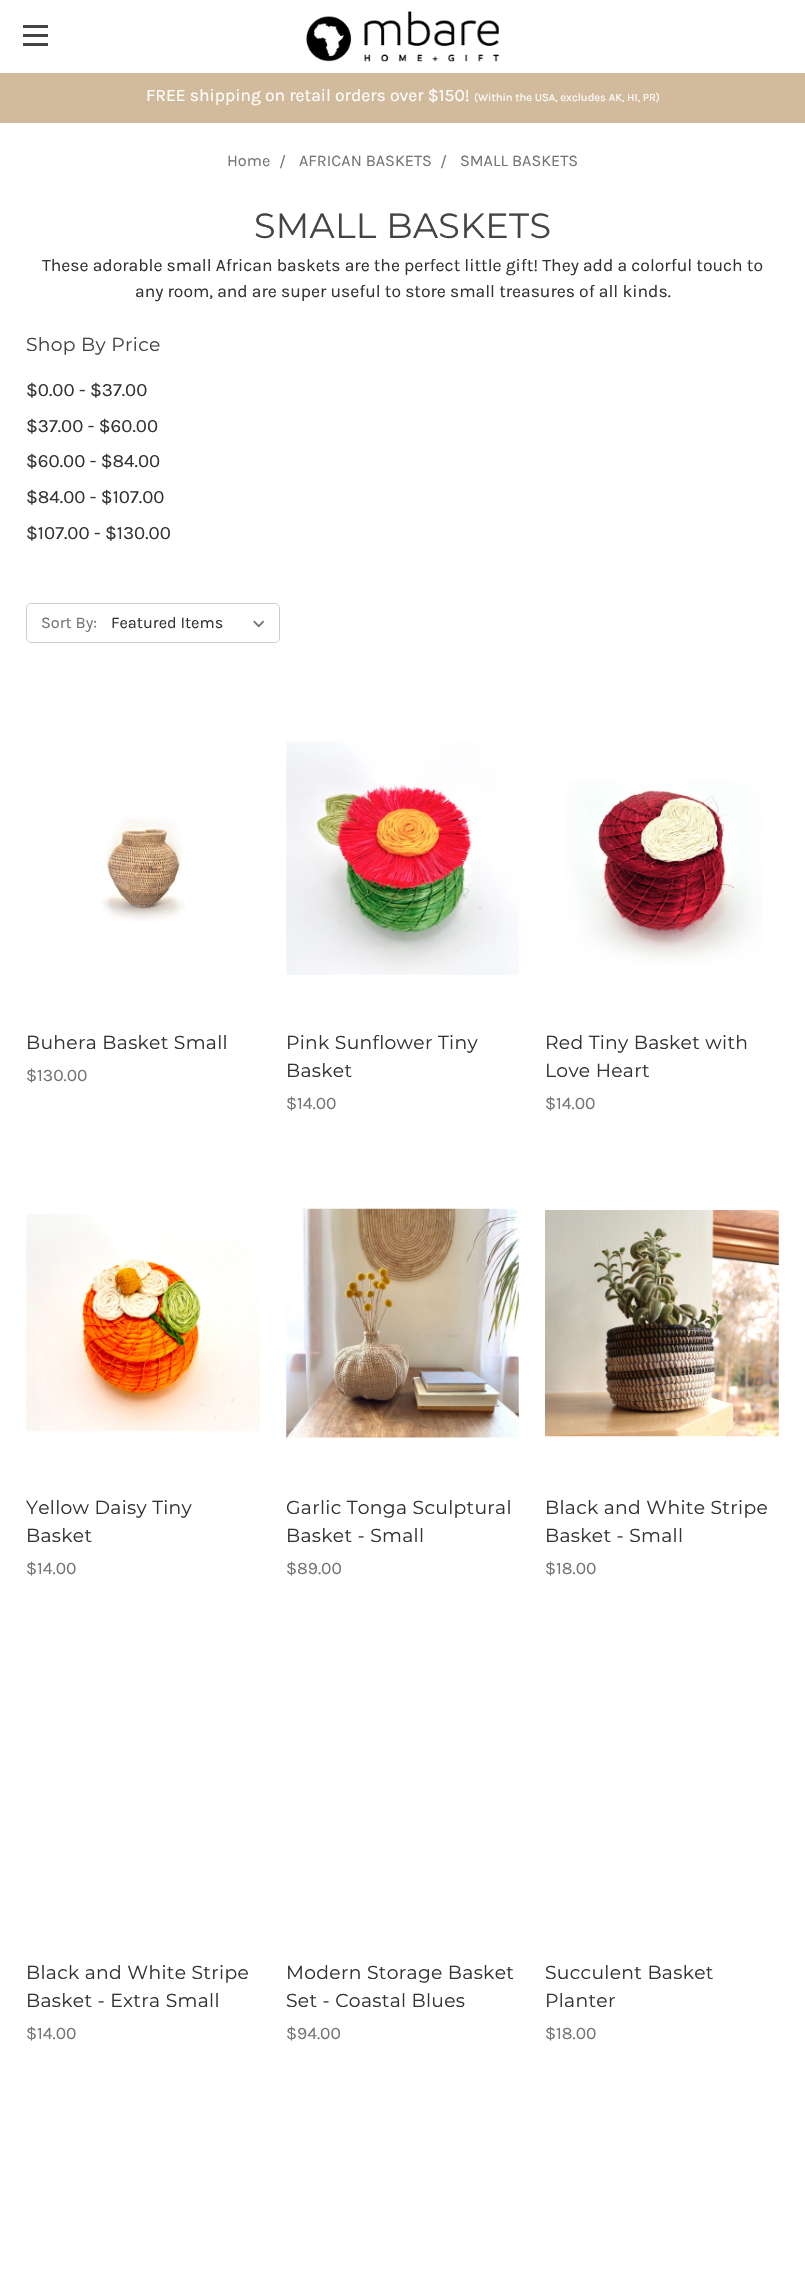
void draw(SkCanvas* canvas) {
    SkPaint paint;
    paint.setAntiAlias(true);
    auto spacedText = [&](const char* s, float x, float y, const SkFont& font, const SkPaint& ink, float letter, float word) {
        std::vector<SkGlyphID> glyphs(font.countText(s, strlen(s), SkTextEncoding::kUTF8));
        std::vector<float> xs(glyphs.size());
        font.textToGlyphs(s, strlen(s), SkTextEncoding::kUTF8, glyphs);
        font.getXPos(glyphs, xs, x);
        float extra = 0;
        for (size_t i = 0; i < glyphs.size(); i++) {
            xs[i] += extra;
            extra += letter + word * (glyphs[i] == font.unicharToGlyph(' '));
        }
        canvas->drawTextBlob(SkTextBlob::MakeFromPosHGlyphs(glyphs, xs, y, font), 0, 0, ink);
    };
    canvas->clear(0xFFFFFFFF);
    paint.setColor(0xFF444444);
    canvas->drawRect(SkRect::MakeXYWH(23, 34, 25, 3), paint);
    canvas->drawRect(SkRect::MakeXYWH(23, 25, 25, 3), paint);
    canvas->drawRect(SkRect::MakeXYWH(23, 43, 25, 3), paint);
    canvas->drawImageRect(SkImages::DeferredFromEncodedData(SkData::MakeFromFileName("img1.png")), SkRect::MakeXYWH(306, 11, 193, 51), SkSamplingOptions());
    paint.setColor(0xFFD2BB9D);
    canvas->drawRect(SkRect::MakeXYWH(0, 73, 805, 50), paint);
    SkFont font1(fontMgr->matchFamilyStyle("Karla", SkFontStyle::Normal()), 17.5f);
    font1.setSubpixel(true);
    paint.setColor(0xFFFFFFFF);
    canvas->drawString("FREE shipping on retail orders over $150!", 146, 101, font1, paint);
    SkFont font2(fontMgr->matchFamilyStyle("Karla", SkFontStyle::Normal()), 11.25f);
    font2.setSubpixel(true);
    canvas->drawString("(Within the USA, excludes AK, HI, PR)", 474, 101, font2, paint);
    SkFont font3(fontMgr->matchFamilyStyle("Karla", SkFontStyle::Normal()), 16.25f);
    font3.setSubpixel(true);
    paint.setColor(0xFF757575);
    canvas->drawString("Home", 227, 166, font3, paint);
    canvas->drawString("/", 279, 167, font3, paint);
    canvas->drawString("AFRICAN BASKETS", 299, 166, font3, paint);
    canvas->drawString("/", 440, 167, font3, paint);
    canvas->drawString("SMALL BASKETS", 460, 166, font3, paint);
    SkFont font4(fontMgr->matchFamilyStyle("Montserrat", SkFontStyle(100, SkFontStyle::kNormal_Width, SkFontStyle::kUpright_Slant)), 35);
    font4.setSubpixel(true);
    paint.setColor(0xFF444444);
    spacedText("SMALL BASKETS", 254, 238, font4, paint, 0.3f, 0);
    paint.setColor(0xFF333333);
    canvas->drawString("These adorable small African baskets are the perfect little gift! They add a colorful touch to", 42, 271, font1, paint);
    canvas->drawString("any room, and are super useful to store small treasures of all kinds.", 135, 297, font1, paint);
    SkFont font5(fontMgr->matchFamilyStyle("Montserrat", SkFontStyle(100, SkFontStyle::kNormal_Width, SkFontStyle::kUpright_Slant)), 18.75f);
    font5.setSubpixel(true);
    paint.setColor(0xFF444444);
    spacedText("Shop By Price", 26, 351, font5, paint, 0.3f, 0);
    SkFont font6(fontMgr->matchFamilyStyle("Karla", SkFontStyle::Normal()), 18.75f);
    font6.setSubpixel(true);
    paint.setColor(0xFF333333);
    canvas->drawString("$0.00 - $37.00", 26, 396, font6, paint);
    canvas->drawString("$37.00 - $60.00", 26, 432, font6, paint);
    canvas->drawString("$60.00 - $84.00", 26, 467, font6, paint);
    canvas->drawString("$84.00 - $107.00", 26, 503, font6, paint);
    canvas->drawString("$107.00 - $130.00", 26, 539, font6, paint);
    paint.setStyle(SkPaint::kStroke_Style);
    paint.setStrokeWidth(1);
    paint.setColor(0xFFCCCCCC);
    canvas->drawRoundRect(SkRect::MakeXYWH(26.5f, 603.5f, 253, 39), 4.5f, 4.5f, paint);
    paint.setStyle(SkPaint::kFill_Style);
    paint.setColor(0xFF757575);
    canvas->drawString("Sort By:", 41, 628, font3, paint);
    canvas->save();
    canvas->clipPath(SkPathBuilder().moveTo(32, 604).lineTo(275, 604).cubicTo(277, 604, 279, 606, 279, 608).lineTo(279, 637).cubicTo(279, 639, 277, 641, 275, 641).lineTo(32, 641).cubicTo(30, 641, 28, 639, 28, 637).lineTo(28, 608).cubicTo(28, 606, 30, 604, 32, 604).close().detach(), true);
    paint.setColor(0xFFFFFFFF);
    canvas->drawRoundRect(SkRect::MakeXYWH(108, 604, 171, 37), 5, 5, paint);
    canvas->restore();
    canvas->drawImageRect(SkImages::DeferredFromEncodedData(SkData::MakeFromFileName("img2.png")), SkRect::MakeXYWH(253, 620, 12, 8), SkSamplingOptions());
    paint.setColor(0xFF333333);
    canvas->drawString("Featured Items", 111, 628, font3, paint);
    canvas->drawImageRect(SkImages::DeferredFromEncodedData(SkData::MakeFromFileName("img3.png")), SkRect::MakeXYWH(101, 817, 84, 105), SkSamplingOptions());
    spacedText("Buhera Basket Small", 26, 1049, font5, paint, 0.3f, 0);
    paint.setColor(0xFF757575);
    canvas->drawString("$130.00", 26, 1081, font1, paint);
    canvas->drawImageRect(SkImages::DeferredFromEncodedData(SkData::MakeFromFileName("img4.png")), SkRect::MakeXYWH(286, 741, 233, 234), SkSamplingOptions());
    paint.setColor(0xFF333333);
    spacedText("Pink Sunflower Tiny", 286, 1049, font5, paint, 0.3f, 0);
    spacedText("Basket", 286, 1077, font5, paint, 0.3f, 0);
    paint.setColor(0xFF757575);
    canvas->drawString("$14.00", 286, 1109, font1, paint);
    canvas->drawImageRect(SkImages::DeferredFromEncodedData(SkData::MakeFromFileName("img5.png")), SkRect::MakeXYWH(565, 779, 198, 186), SkSamplingOptions());
    paint.setColor(0xFF333333);
    spacedText("Red Tiny Basket with", 545, 1049, font5, paint, 0.3f, 0);
    spacedText("Love Heart", 545, 1077, font5, paint, 0.3f, 0);
    paint.setColor(0xFF757575);
    canvas->drawString("$14.00", 545, 1109, font1, paint);
    canvas->drawImageRect(SkImages::DeferredFromEncodedData(SkData::MakeFromFileName("img6.png")), SkRect::MakeXYWH(26, 1214, 234, 218), SkSamplingOptions());
    paint.setColor(0xFF333333);
    spacedText("Yellow Daisy Tiny", 26, 1514, font5, paint, 0.3f, 0);
    spacedText("Basket", 26, 1542, font5, paint, 0.3f, 0);
    paint.setColor(0xFF757575);
    canvas->drawString("$14.00", 26, 1574, font1, paint);
    canvas->drawImageRect(SkImages::DeferredFromEncodedData(SkData::MakeFromFileName("img7.png")), SkRect::MakeXYWH(286, 1208, 233, 230), SkSamplingOptions());
    paint.setColor(0xFF333333);
    spacedText("Garlic Tonga Sculptural", 286, 1514, font5, paint, 0.3f, 0);
    spacedText("Basket - Small", 286, 1542, font5, paint, 0.3f, 0);
    paint.setColor(0xFF757575);
    canvas->drawString("$89.00", 286, 1574, font1, paint);
    canvas->drawImageRect(SkImages::DeferredFromEncodedData(SkData::MakeFromFileName("img8.png")), SkRect::MakeXYWH(545, 1210, 234, 227), SkSamplingOptions());
    paint.setColor(0xFF333333);
    spacedText("Black and White Stripe", 545, 1514, font5, paint, 0.3f, 0);
    spacedText("Basket - Small", 545, 1542, font5, paint, 0.3f, 0);
    paint.setColor(0xFF757575);
    canvas->drawString("$18.00", 545, 1574, font1, paint);
    paint.setColor(0xFF333333);
    spacedText("Black and White Stripe", 26, 1979, font5, paint, 0.3f, 0);
    spacedText("Basket - Extra Small", 26, 2007, font5, paint, 0.3f, 0);
    paint.setColor(0xFF757575);
    canvas->drawString("$14.00", 26, 2039, font1, paint);
    paint.setColor(0xFF333333);
    spacedText("Modern Storage Basket", 286, 1979, font5, paint, 0.3f, 0);
    spacedText("Set - Coastal Blues", 286, 2007, font5, paint, 0.3f, 0);
    paint.setColor(0xFF757575);
    canvas->drawString("$94.00", 286, 2039, font1, paint);
    paint.setColor(0xFF333333);
    spacedText("Succulent Basket", 545, 1979, font5, paint, 0.3f, 0);
    spacedText("Planter", 545, 2007, font5, paint, 0.3f, 0);
    paint.setColor(0xFF757575);
    canvas->drawString("$18.00", 545, 2039, font1, paint);
}
